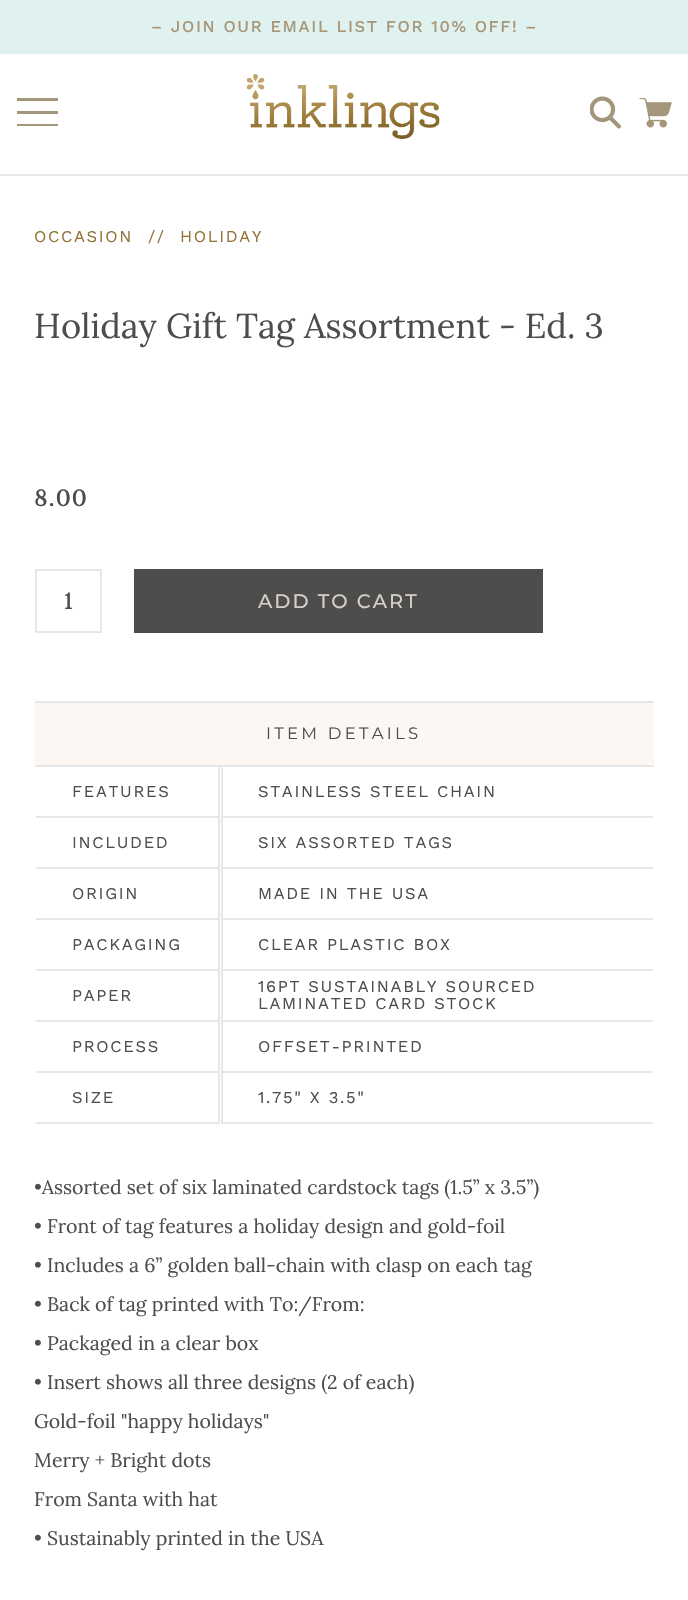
void draw(SkCanvas* canvas) {
    SkPaint paint;
    paint.setAntiAlias(true);
    auto spacedText = [&](const char* s, float x, float y, const SkFont& font, const SkPaint& ink, float letter, float word) {
        std::vector<SkGlyphID> glyphs(font.countText(s, strlen(s), SkTextEncoding::kUTF8));
        std::vector<float> xs(glyphs.size());
        font.textToGlyphs(s, strlen(s), SkTextEncoding::kUTF8, glyphs);
        font.getXPos(glyphs, xs, x);
        float extra = 0;
        for (size_t i = 0; i < glyphs.size(); i++) {
            xs[i] += extra;
            extra += letter + word * (glyphs[i] == font.unicharToGlyph(' '));
        }
        canvas->drawTextBlob(SkTextBlob::MakeFromPosHGlyphs(glyphs, xs, y, font), 0, 0, ink);
    };
    canvas->clear(0xFFFFFFFF);
    paint.setColor(0xFFDFF2F0);
    canvas->drawRect(SkRect::MakeXYWH(0, 0, 688, 54), paint);
    SkFont font1(fontMgr->matchFamilyStyle("Work Sans", SkFontStyle(500, SkFontStyle::kNormal_Width, SkFontStyle::kUpright_Slant)), 16.5f);
    font1.setSubpixel(true);
    paint.setColor(0xFFA79678);
    spacedText("– JOIN OUR EMAIL LIST FOR 10% OFF! –", 151, 32, font1, paint, 1.65f, 0);
    canvas->save();
    canvas->clipRect(SkRect::MakeXYWH(17, 98, 42, 30));
    paint.setColor(0xFFA3967B);
    canvas->drawPath(SkPathBuilder().moveTo(16, 98).lineTo(16, 101).lineTo(58, 101).lineTo(58, 98).close().moveTo(16, 111).lineTo(16, 114).lineTo(58, 114).lineTo(58, 111).close().moveTo(16, 124).lineTo(16, 126).lineTo(58, 126).lineTo(58, 124).close().detach(), paint);
    canvas->restore();
    canvas->drawImageRect(SkImages::DeferredFromEncodedData(SkData::MakeFromFileName("img1.png")), SkRect::MakeXYWH(246, 74, 194, 65), SkSamplingOptions());
    canvas->drawImageRect(SkImages::DeferredFromEncodedData(SkData::MakeFromFileName("img2.png")), SkRect::MakeXYWH(590, 96, 31, 33), SkSamplingOptions());
    canvas->drawImageRect(SkImages::DeferredFromEncodedData(SkData::MakeFromFileName("img3.png")), SkRect::MakeXYWH(639, 98, 33, 30), SkSamplingOptions());
    paint.setColor(0xFFE7E7E7);
    canvas->drawRect(SkRect::MakeXYWH(0, 174, 688, 2), paint);
    SkFont font2(fontMgr->matchFamilyStyle("Work Sans", SkFontStyle::Normal()), 16.5f);
    font2.setSubpixel(true);
    paint.setColor(0xFF937136);
    spacedText("OCCASION", 34, 242, font2, paint, 1.65f, 0);
    spacedText("//", 148, 242, font2, paint, 1.65f, 0);
    spacedText("HOLIDAY", 180, 242, font2, paint, 1.65f, 0);
    SkFont font3(fontMgr->matchFamilyStyle("Lora", SkFontStyle::Normal()), 34.5f);
    font3.setSubpixel(true);
    paint.setColor(0xFF4D4D4D);
    canvas->drawString("Holiday Gift Tag Assortment - Ed. 3", 34, 338, font3, paint);
    SkFont font4(fontMgr->matchFamilyStyle("Arbutus Slab", SkFontStyle::Normal()), 22.5f);
    font4.setSubpixel(true);
    canvas->drawString("8.00", 34, 506, font4, paint);
    paint.setStyle(SkPaint::kStroke_Style);
    paint.setStrokeWidth(2);
    paint.setColor(0xFFE7E7E7);
    canvas->drawRect(SkRect::MakeXYWH(36, 570, 65, 62), paint);
    paint.setStyle(SkPaint::kFill_Style);
    paint.setColor(0xFF4D4D4D);
    canvas->drawString("1", 64, 609, font4, paint);
    canvas->drawRect(SkRect::MakeXYWH(134, 569, 409, 64), paint);
    SkFont font5(fontMgr->matchFamilyStyle("Montserrat", SkFontStyle(500, SkFontStyle::kNormal_Width, SkFontStyle::kUpright_Slant)), 19.5f);
    font5.setSubpixel(true);
    paint.setColor(0xFFD6CEC3);
    spacedText("ADD TO CART", 258, 608, font5, paint, 2, 0);
    paint.setColor(0xFFFDF7F4);
    canvas->drawRect(SkRect::MakeXYWH(35, 703, 619, 62), paint);
    paint.setColor(0xFFE7E7E7);
    canvas->drawRect(SkRect::MakeXYWH(35, 701, 619, 2), paint);
    canvas->drawRect(SkRect::MakeXYWH(35, 765, 619, 2), paint);
    SkFont font6(fontMgr->matchFamilyStyle("Montserrat", SkFontStyle::Normal()), 16.5f);
    font6.setSubpixel(true);
    paint.setColor(0xFF4D4D4D);
    spacedText("ITEM DETAILS", 266, 739, font6, paint, 3.25f, 0);
    paint.setColor(0xFFE7E7E7);
    canvas->drawRect(SkRect::MakeXYWH(218, 767, 2, 357), paint);
    canvas->drawRect(SkRect::MakeXYWH(36, 816, 183, 2), paint);
    paint.setColor(0xFF4D4D4D);
    spacedText("FEATURES", 72, 797, font2, paint, 1.65f, 0);
    paint.setColor(0xFFE7E7E7);
    canvas->drawRect(SkRect::MakeXYWH(221, 816, 432, 2), paint);
    canvas->drawRect(SkRect::MakeXYWH(221, 767, 2, 51), paint);
    paint.setColor(0xFF4D4D4D);
    spacedText("STAINLESS STEEL CHAIN", 258, 797, font2, paint, 1.65f, 0);
    paint.setColor(0xFFE7E7E7);
    canvas->drawRect(SkRect::MakeXYWH(36, 867, 183, 2), paint);
    paint.setColor(0xFF4D4D4D);
    spacedText("INCLUDED", 72, 848, font2, paint, 1.65f, 0);
    paint.setColor(0xFFE7E7E7);
    canvas->drawRect(SkRect::MakeXYWH(221, 867, 432, 2), paint);
    canvas->drawRect(SkRect::MakeXYWH(221, 818, 2, 51), paint);
    paint.setColor(0xFF4D4D4D);
    spacedText("SIX ASSORTED TAGS", 258, 848, font2, paint, 1.65f, 0);
    paint.setColor(0xFFE7E7E7);
    canvas->drawRect(SkRect::MakeXYWH(36, 918, 183, 2), paint);
    paint.setColor(0xFF4D4D4D);
    spacedText("ORIGIN", 72, 899, font2, paint, 1.65f, 0);
    paint.setColor(0xFFE7E7E7);
    canvas->drawRect(SkRect::MakeXYWH(221, 918, 432, 2), paint);
    canvas->drawRect(SkRect::MakeXYWH(221, 869, 2, 51), paint);
    paint.setColor(0xFF4D4D4D);
    spacedText("MADE IN THE USA", 258, 899, font2, paint, 1.65f, 0);
    paint.setColor(0xFFE7E7E7);
    canvas->drawRect(SkRect::MakeXYWH(36, 969, 183, 2), paint);
    paint.setColor(0xFF4D4D4D);
    spacedText("PACKAGING", 72, 950, font2, paint, 1.65f, 0);
    paint.setColor(0xFFE7E7E7);
    canvas->drawRect(SkRect::MakeXYWH(221, 969, 432, 2), paint);
    canvas->drawRect(SkRect::MakeXYWH(221, 920, 2, 51), paint);
    paint.setColor(0xFF4D4D4D);
    spacedText("CLEAR PLASTIC BOX", 258, 950, font2, paint, 1.65f, 0);
    paint.setColor(0xFFE7E7E7);
    canvas->drawRect(SkRect::MakeXYWH(36, 1020, 183, 2), paint);
    paint.setColor(0xFF4D4D4D);
    spacedText("PAPER", 72, 1001, font2, paint, 1.65f, 0);
    paint.setColor(0xFFE7E7E7);
    canvas->drawRect(SkRect::MakeXYWH(221, 1020, 432, 2), paint);
    canvas->drawRect(SkRect::MakeXYWH(221, 971, 2, 51), paint);
    paint.setColor(0xFF4D4D4D);
    spacedText("16PT SUSTAINABLY SOURCED", 258, 992, font2, paint, 1.65f, 0);
    spacedText("LAMINATED CARD STOCK", 258, 1009, font2, paint, 1.65f, 0);
    paint.setColor(0xFFE7E7E7);
    canvas->drawRect(SkRect::MakeXYWH(36, 1071, 183, 2), paint);
    paint.setColor(0xFF4D4D4D);
    spacedText("PROCESS", 72, 1052, font2, paint, 1.65f, 0);
    paint.setColor(0xFFE7E7E7);
    canvas->drawRect(SkRect::MakeXYWH(221, 1071, 432, 2), paint);
    canvas->drawRect(SkRect::MakeXYWH(221, 1022, 2, 51), paint);
    paint.setColor(0xFF4D4D4D);
    spacedText("OFFSET-PRINTED", 258, 1052, font2, paint, 1.65f, 0);
    paint.setColor(0xFFE7E7E7);
    canvas->drawRect(SkRect::MakeXYWH(36, 1122, 183, 2), paint);
    paint.setColor(0xFF4D4D4D);
    spacedText("SIZE", 72, 1103, font2, paint, 1.65f, 0);
    paint.setColor(0xFFE7E7E7);
    canvas->drawRect(SkRect::MakeXYWH(221, 1122, 432, 2), paint);
    canvas->drawRect(SkRect::MakeXYWH(221, 1073, 2, 51), paint);
    paint.setColor(0xFF4D4D4D);
    spacedText("1.75\" X 3.5\"", 258, 1103, font2, paint, 1.65f, 0);
    SkFont font7(fontMgr->matchFamilyStyle("Lora", SkFontStyle::Normal()), 19.5f);
    font7.setSubpixel(true);
    canvas->drawString("•Assorted set of six laminated cardstock tags (1.5” x 3.5”)", 34, 1194, font7, paint);
    canvas->drawString("• Front of tag features a holiday design and gold-foil", 34, 1233, font7, paint);
    canvas->drawString("• Includes a 6” golden ball-chain with clasp on each tag", 34, 1272, font7, paint);
    canvas->drawString("• Back of tag printed with To:/From:", 34, 1311, font7, paint);
    canvas->drawString("• Packaged in a clear box", 34, 1350, font7, paint);
    canvas->drawString("• Insert shows all three designs (2 of each)", 34, 1389, font7, paint);
    canvas->drawString("Gold-foil \"happy holidays\"", 34, 1428, font7, paint);
    canvas->drawString("Merry + Bright dots", 34, 1467, font7, paint);
    canvas->drawString("From Santa with hat", 34, 1506, font7, paint);
    canvas->drawString("• Sustainably printed in the USA", 34, 1545, font7, paint);
}
